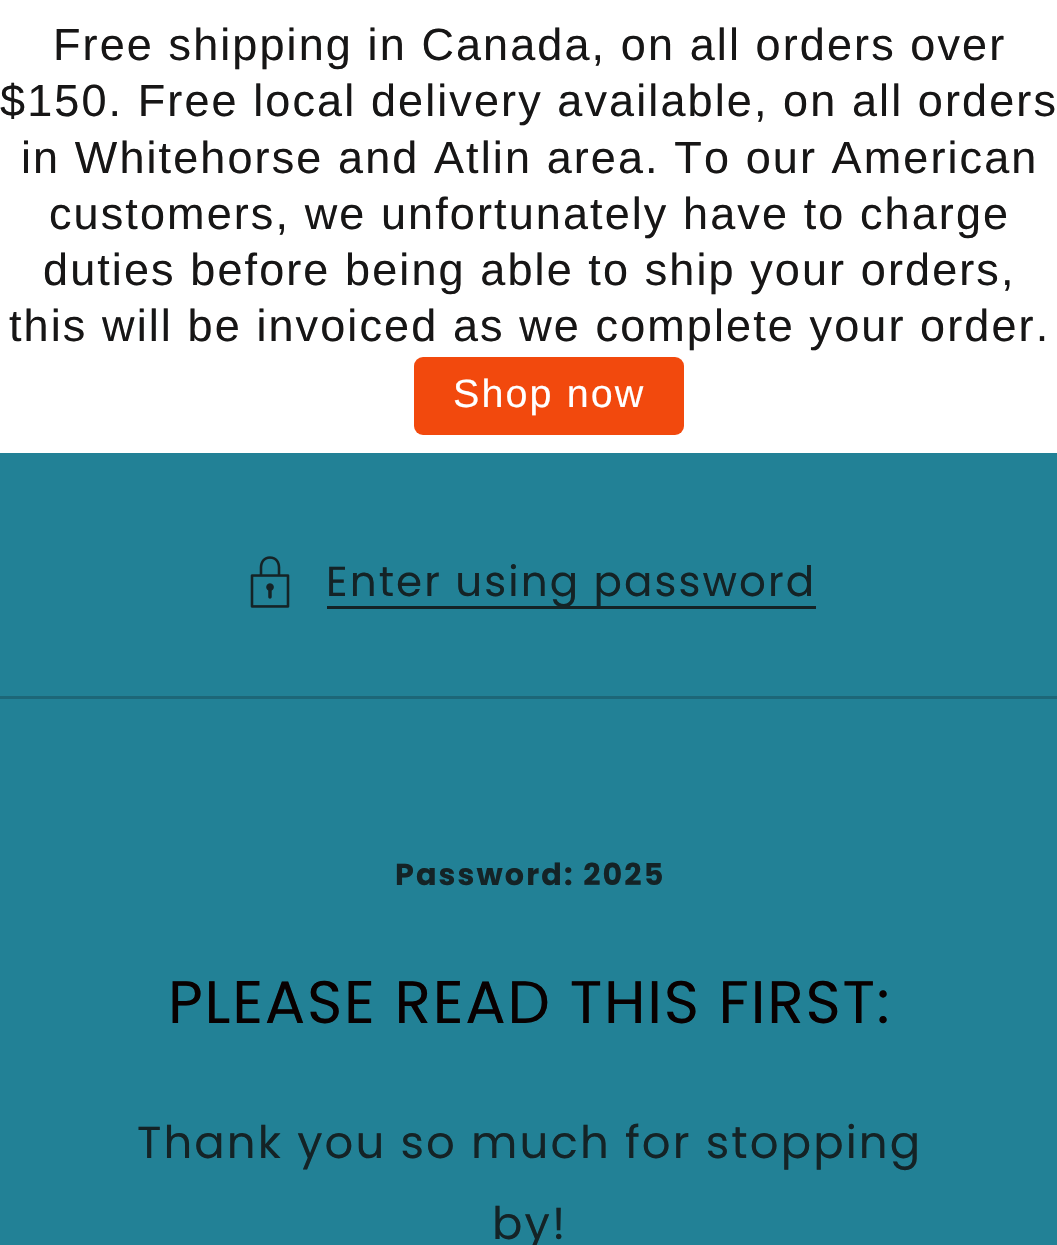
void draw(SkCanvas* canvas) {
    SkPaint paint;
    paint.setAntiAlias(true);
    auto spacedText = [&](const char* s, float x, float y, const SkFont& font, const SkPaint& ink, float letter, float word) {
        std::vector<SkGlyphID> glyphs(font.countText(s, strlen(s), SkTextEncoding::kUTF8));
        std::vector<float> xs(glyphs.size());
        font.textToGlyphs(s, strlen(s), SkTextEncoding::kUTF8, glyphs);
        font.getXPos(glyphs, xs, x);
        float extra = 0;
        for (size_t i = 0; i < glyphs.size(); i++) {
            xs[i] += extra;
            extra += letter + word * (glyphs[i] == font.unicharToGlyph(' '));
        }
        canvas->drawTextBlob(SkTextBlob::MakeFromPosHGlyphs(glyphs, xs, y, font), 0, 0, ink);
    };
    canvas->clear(0xFF228196);
    paint.setColor(0xFFFFFFFF);
    canvas->drawRect(SkRect::MakeXYWH(0, 0, 1057, 453), paint);
    SkFont font1(fontMgr->matchFamilyStyle("Liberation Sans", SkFontStyle::Normal()), 45);
    font1.setSubpixel(true);
    paint.setColor(0xFF171616);
    spacedText("Free shipping in Canada, on all orders over", 53, 60, font1, paint, 2.1f, 0);
    spacedText("$150. Free local delivery available, on all orders", 0, 116, font1, paint, 2.1f, 0);
    spacedText("in Whitehorse and Atlin area. To our American", 21, 173, font1, paint, 2.1f, 0);
    spacedText("customers, we unfortunately have to charge", 49, 229, font1, paint, 2.1f, 0);
    spacedText("duties before being able to ship your orders,", 43, 285, font1, paint, 2.1f, 0);
    spacedText("this will be invoiced as we complete your order.", 9, 341, font1, paint, 2.1f, 0);
    paint.setColor(0xFFF2490D);
    canvas->drawRoundRect(SkRect::MakeXYWH(414, 357, 270, 78), 9, 9, paint);
    SkFont font2(fontMgr->matchFamilyStyle("Liberation Sans", SkFontStyle::Normal()), 39.5f);
    font2.setSubpixel(true);
    paint.setColor(0xFFFFFFFF);
    spacedText("Shop now", 453, 407, font2, paint, 2.1f, 0);
    canvas->drawImageRect(SkImages::DeferredFromEncodedData(SkData::MakeFromFileName("img1.png")), SkRect::MakeXYWH(250, 556, 40, 52), SkSamplingOptions());
    paint.setColor(0xFF142326);
    canvas->drawRect(SkRect::MakeXYWH(327, 606, 489, 3), paint);
    SkFont font3(fontMgr->matchFamilyStyle("Poppins", SkFontStyle::Normal()), 42);
    font3.setSubpixel(true);
    spacedText("Enter using password", 326, 596, font3, paint, 2.1f, 0);
    paint.setColor(0xFF1D6778);
    canvas->drawRect(SkRect::MakeXYWH(0, 696, 1057, 3), paint);
    SkFont font4(fontMgr->matchFamilyStyle("Poppins", SkFontStyle::Bold()), 30.25f);
    font4.setSubpixel(true);
    paint.setColor(0xFF142326);
    spacedText("Password: 2025", 395, 885, font4, paint, 2.1f, 0);
    SkFont font5(fontMgr->matchFamilyStyle("Poppins", SkFontStyle::Normal()), 60);
    font5.setSubpixel(true);
    paint.setColor(0xFF080000);
    spacedText("PLEASE READ THIS FIRST:", 168, 1023, font5, paint, 1.8f, 0);
    SkFont font6(fontMgr->matchFamilyStyle("Poppins", SkFontStyle::Normal()), 45);
    font6.setSubpixel(true);
    paint.setColor(0xFF142326);
    spacedText("Thank you so much for stopping", 137, 1158, font6, paint, 2.1f, 0);
    spacedText("by!", 492, 1239, font6, paint, 2.1f, 0);
}
